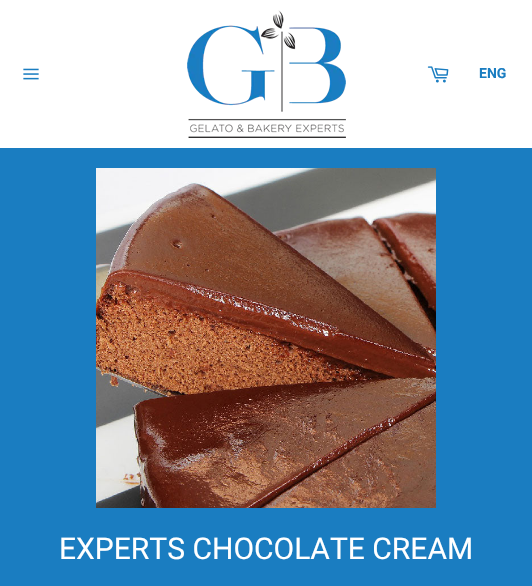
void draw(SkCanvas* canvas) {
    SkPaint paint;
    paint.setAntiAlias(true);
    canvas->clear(0xFF1A7DC1);
    paint.setColor(0xFFFFFFFF);
    canvas->drawRect(SkRect::MakeXYWH(0, 0, 532, 148), paint);
    canvas->drawImageRect(SkImages::DeferredFromEncodedData(SkData::MakeFromFileName("img1.png")), SkRect::MakeXYWH(23, 68, 16, 12), SkSamplingOptions());
    canvas->drawImageRect(SkImages::DeferredFromEncodedData(SkData::MakeFromFileName("img2.png")), SkRect::MakeXYWH(187, 10, 159, 128), SkSamplingOptions());
    canvas->drawImageRect(SkImages::DeferredFromEncodedData(SkData::MakeFromFileName("img3.png")), SkRect::MakeXYWH(427, 66, 22, 17), SkSamplingOptions());
    SkFont font1(fontMgr->matchFamilyStyle("Roboto", SkFontStyle::Bold()), 14);
    font1.setSubpixel(true);
    paint.setColor(0xFF1A7DC1);
    canvas->drawString("ENG", 479, 78, font1, paint);
    canvas->drawImageRect(SkImages::DeferredFromEncodedData(SkData::MakeFromFileName("img4.png")), SkRect::MakeXYWH(96, 168, 340, 340), SkSamplingOptions());
    SkFont font2(fontMgr->matchFamilyStyle("Roboto", SkFontStyle::Normal()), 30);
    font2.setSubpixel(true);
    paint.setColor(0xFFFFFFFF);
    canvas->drawString("EXPERTS CHOCOLATE CREAM", 59, 559, font2, paint);
}
